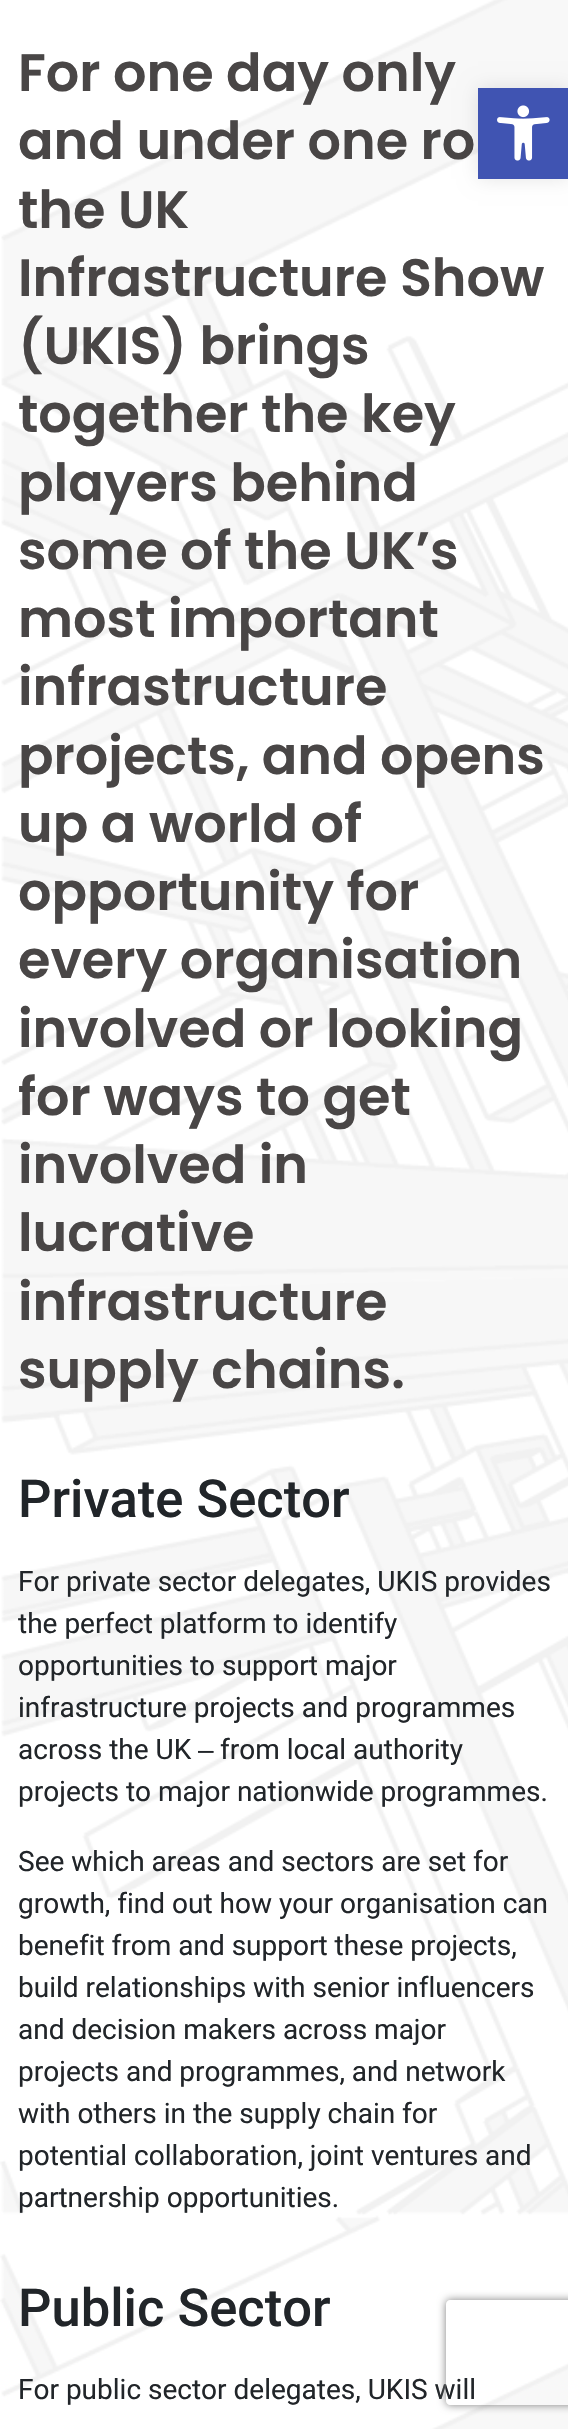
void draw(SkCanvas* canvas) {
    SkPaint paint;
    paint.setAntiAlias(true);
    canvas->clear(0xFFFFFFFF);
    canvas->drawImageRect(SkImages::DeferredFromEncodedData(SkData::MakeFromFileName("img1.png")), SkRect::MakeXYWH(0, 0, 568, 2429), SkSamplingOptions());
    SkFont font1(fontMgr->matchFamilyStyle("Poppins", SkFontStyle(600, SkFontStyle::kNormal_Width, SkFontStyle::kUpright_Slant)), 52.5f);
    font1.setSubpixel(true);
    paint.setColor(0xFF494646);
    canvas->drawString("For one day only", 18, 91, font1, paint);
    canvas->drawString("and under one ro", 18, 159, font1, paint);
    canvas->drawString("the UK", 18, 228, font1, paint);
    canvas->drawString("Infrastructure Show", 18, 296, font1, paint);
    canvas->drawString("(UKIS) brings", 18, 364, font1, paint);
    canvas->drawString("together the key", 18, 432, font1, paint);
    canvas->drawString("players behind", 18, 501, font1, paint);
    canvas->drawString("some of the UK’s", 18, 569, font1, paint);
    canvas->drawString("most important", 18, 637, font1, paint);
    canvas->drawString("infrastructure", 18, 705, font1, paint);
    canvas->drawString("projects, and opens", 18, 774, font1, paint);
    canvas->drawString("up a world of", 18, 842, font1, paint);
    canvas->drawString("opportunity for", 18, 910, font1, paint);
    canvas->drawString("every organisation", 18, 978, font1, paint);
    canvas->drawString("involved or looking", 18, 1047, font1, paint);
    canvas->drawString("for ways to get", 18, 1115, font1, paint);
    canvas->drawString("involved in", 18, 1183, font1, paint);
    canvas->drawString("lucrative", 18, 1251, font1, paint);
    canvas->drawString("infrastructure", 18, 1320, font1, paint);
    canvas->drawString("supply chains.", 18, 1388, font1, paint);
    SkFont font2(fontMgr->matchFamilyStyle("Roboto", SkFontStyle(500, SkFontStyle::kNormal_Width, SkFontStyle::kUpright_Slant)), 52.5f);
    font2.setSubpixel(true);
    paint.setColor(0xFF212529);
    canvas->drawString("Private Sector", 18, 1517, font2, paint);
    SkFont font3(fontMgr->matchFamilyStyle("Roboto", SkFontStyle::Normal()), 28);
    font3.setSubpixel(true);
    canvas->drawString("For private sector delegates, UKIS provides", 18, 1591, font3, paint);
    canvas->drawString("the perfect platform to identify", 18, 1633, font3, paint);
    canvas->drawString("opportunities to support major", 18, 1675, font3, paint);
    canvas->drawString("infrastructure projects and programmes", 18, 1717, font3, paint);
    canvas->drawString("across the UK", 18, 1759, font3, paint);
    SkFont font4(fontMgr->matchFamilyStyle("Liberation Sans", SkFontStyle::Normal()), 28);
    font4.setSubpixel(true);
    canvas->drawString("‒", 198, 1759, font4, paint);
    canvas->drawString("from local authority", 220, 1759, font3, paint);
    canvas->drawString("projects to major nationwide programmes.", 18, 1801, font3, paint);
    canvas->drawString("See which areas and sectors are set for", 18, 1871, font3, paint);
    canvas->drawString("growth, find out how your organisation can", 18, 1913, font3, paint);
    canvas->drawString("benefit from and support these projects,", 18, 1955, font3, paint);
    canvas->drawString("build relationships with senior influencers", 18, 1997, font3, paint);
    canvas->drawString("and decision makers across major", 18, 2039, font3, paint);
    canvas->drawString("projects and programmes, and network", 18, 2081, font3, paint);
    canvas->drawString("with others in the supply chain for", 18, 2123, font3, paint);
    canvas->drawString("potential collaboration, joint ventures and", 18, 2165, font3, paint);
    canvas->drawString("partnership opportunities.", 18, 2207, font3, paint);
    canvas->drawString("Public Sector", 18, 2326, font2, paint);
    canvas->drawString("For public sector delegates, UKIS will", 18, 2399, font3, paint);
    paint.setColor(0x1A000000);
    paint.setMaskFilter(SkMaskFilter::MakeBlur(kNormal_SkBlurStyle, 9));
    canvas->drawRect(SkRect::MakeXYWH(478, 88, 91, 91), paint);
    paint.setMaskFilter(nullptr);
    paint.setColor(0xFF4054B2);
    canvas->drawRect(SkRect::MakeXYWH(478, 88, 90, 91), paint);
    canvas->drawImageRect(SkImages::DeferredFromEncodedData(SkData::MakeFromFileName("img2.png")), SkRect::MakeXYWH(497, 105, 53, 56), SkSamplingOptions());
    canvas->save();
    canvas->clipPath(SkPathBuilder(SkPathFillType::kEvenOdd).moveTo(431, 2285).lineTo(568, 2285).lineTo(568, 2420).lineTo(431, 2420).close().moveTo(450, 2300).lineTo(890, 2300).cubicTo(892, 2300, 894, 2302, 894, 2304).lineTo(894, 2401).cubicTo(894, 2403, 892, 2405, 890, 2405).lineTo(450, 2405).cubicTo(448, 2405, 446, 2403, 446, 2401).lineTo(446, 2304).cubicTo(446, 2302, 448, 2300, 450, 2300).close().detach(), true);
    paint.setColor(0xFF808080);
    paint.setMaskFilter(SkMaskFilter::MakeBlur(kNormal_SkBlurStyle, 4.5f));
    canvas->drawRoundRect(SkRect::MakeXYWH(446, 2300, 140, 105), 4, 4, paint);
    paint.setMaskFilter(nullptr);
    canvas->restore();
}
